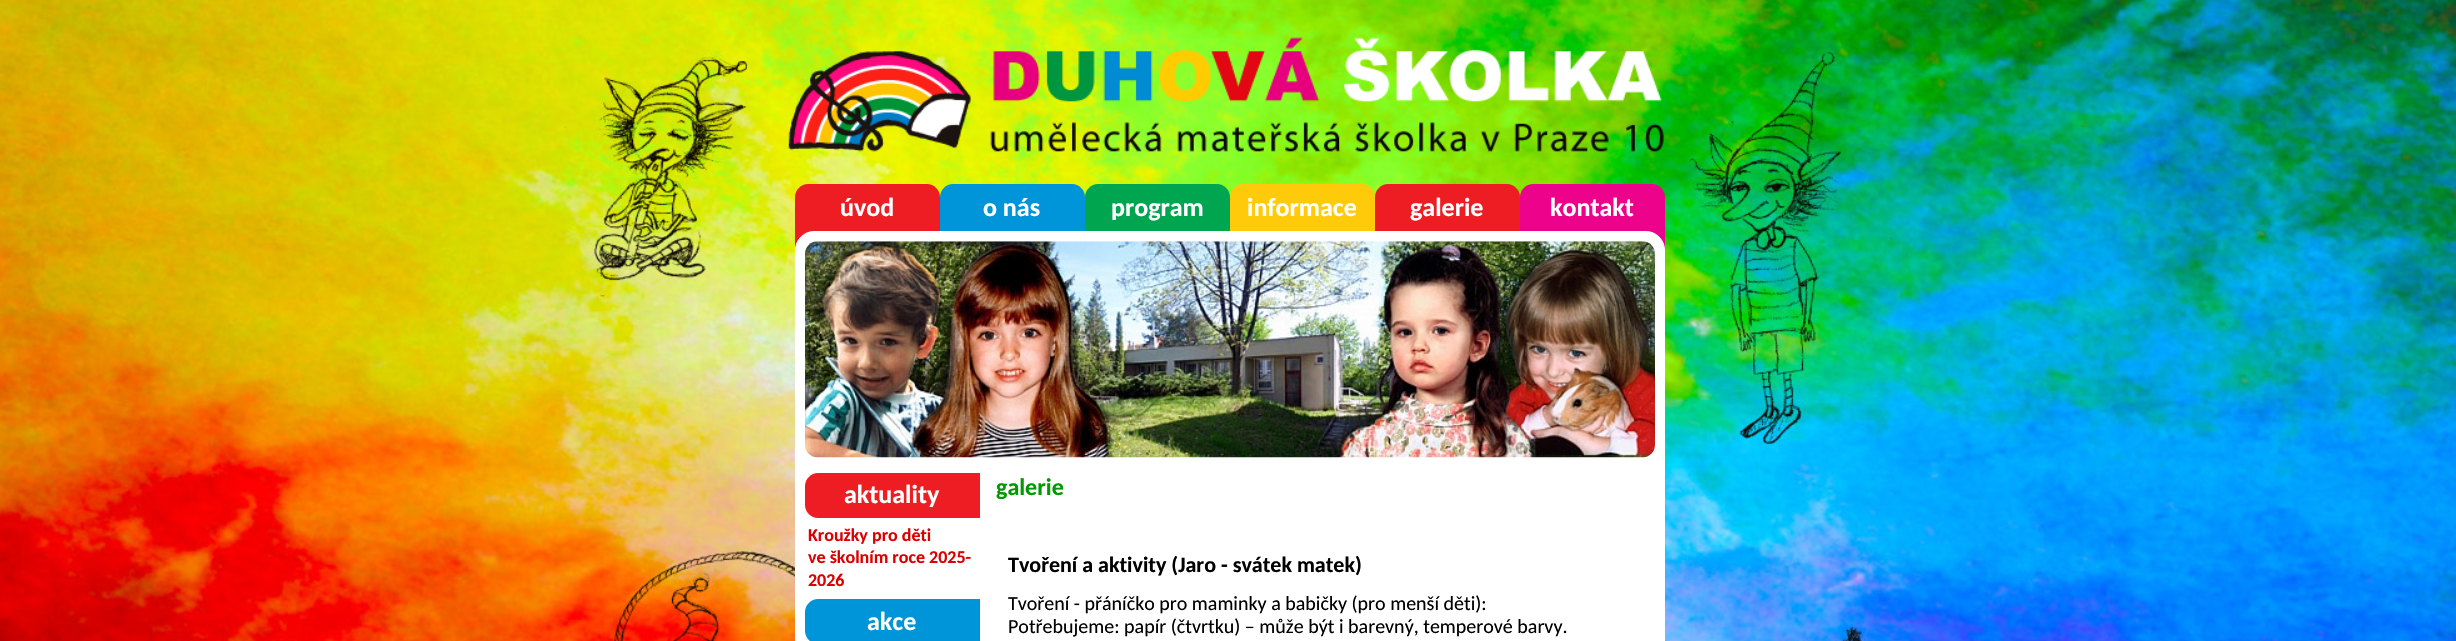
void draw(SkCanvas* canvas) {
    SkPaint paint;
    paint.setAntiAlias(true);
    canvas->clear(0xFFFFFFFF);
    canvas->drawImageRect(SkImages::DeferredFromEncodedData(SkData::MakeFromFileName("img1.png")), SkRect::MakeXYWH(0, 0, 2456, 641), SkSamplingOptions());
    canvas->drawImageRect(SkImages::DeferredFromEncodedData(SkData::MakeFromFileName("img2.png")), SkRect::MakeXYWH(762, 1, 926, 198), SkSamplingOptions());
    paint.setColor(0xFFEE1D23);
    canvas->drawPath(SkPathBuilder().moveTo(808, 184).lineTo(927, 184).cubicTo(934, 184, 940, 190, 940, 197).lineTo(940, 270).lineTo(795, 270).lineTo(795, 197).cubicTo(795, 190, 801, 184, 808, 184).close().detach(), paint);
    SkFont font1(fontMgr->matchFamilyStyle("Carlito", SkFontStyle::Bold()), 26);
    font1.setSubpixel(true);
    paint.setColor(0xFFFFFFFF);
    canvas->drawString("úvod", 840, 216, font1, paint);
    paint.setColor(0xFF0095D9);
    canvas->drawPath(SkPathBuilder().moveTo(953, 184).lineTo(1072, 184).cubicTo(1079, 184, 1085, 190, 1085, 197).lineTo(1085, 270).lineTo(940, 270).lineTo(940, 197).cubicTo(940, 190, 946, 184, 953, 184).close().detach(), paint);
    paint.setColor(0xFFFFFFFF);
    canvas->drawString("o nás", 983, 216, font1, paint);
    paint.setColor(0xFF00A54F);
    canvas->drawPath(SkPathBuilder().moveTo(1098, 184).lineTo(1217, 184).cubicTo(1224, 184, 1230, 190, 1230, 197).lineTo(1230, 270).lineTo(1085, 270).lineTo(1085, 197).cubicTo(1085, 190, 1091, 184, 1098, 184).close().detach(), paint);
    paint.setColor(0xFFFFFFFF);
    canvas->drawString("program", 1111, 216, font1, paint);
    paint.setColor(0xFFFECA0A);
    canvas->drawPath(SkPathBuilder().moveTo(1243, 184).lineTo(1362, 184).cubicTo(1369, 184, 1375, 190, 1375, 197).lineTo(1375, 270).lineTo(1230, 270).lineTo(1230, 197).cubicTo(1230, 190, 1236, 184, 1243, 184).close().detach(), paint);
    paint.setColor(0xFFFFFFFF);
    canvas->drawString("informace", 1247, 216, font1, paint);
    paint.setColor(0xFFEE1D23);
    canvas->drawPath(SkPathBuilder().moveTo(1388, 184).lineTo(1507, 184).cubicTo(1514, 184, 1520, 190, 1520, 197).lineTo(1520, 270).lineTo(1375, 270).lineTo(1375, 197).cubicTo(1375, 190, 1381, 184, 1388, 184).close().detach(), paint);
    paint.setColor(0xFFFFFFFF);
    canvas->drawString("galerie", 1410, 216, font1, paint);
    paint.setColor(0xFFED028C);
    canvas->drawPath(SkPathBuilder().moveTo(1533, 184).lineTo(1652, 184).cubicTo(1659, 184, 1665, 190, 1665, 197).lineTo(1665, 270).lineTo(1520, 270).lineTo(1520, 197).cubicTo(1520, 190, 1526, 184, 1533, 184).close().detach(), paint);
    paint.setColor(0xFFFFFFFF);
    canvas->drawString("kontakt", 1550, 216, font1, paint);
    canvas->drawRoundRect(SkRect::MakeXYWH(795.5f, 231.5f, 869, 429), 18.5f, 18.5f, paint);
    paint.setStyle(SkPaint::kStroke_Style);
    paint.setStrokeWidth(1);
    canvas->drawRoundRect(SkRect::MakeXYWH(795.5f, 231.5f, 869, 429), 18.5f, 18.5f, paint);
    paint.setStyle(SkPaint::kFill_Style);
    paint.setColor(0xFFEE1D23);
    canvas->drawPath(SkPathBuilder().moveTo(818, 473).lineTo(980, 473).lineTo(980, 518).lineTo(818, 518).cubicTo(811, 518, 805, 512, 805, 505).lineTo(805, 486).cubicTo(805, 479, 811, 473, 818, 473).close().detach(), paint);
    paint.setColor(0xFFFFFFFF);
    canvas->drawString("aktuality", 844, 503, font1, paint);
    SkFont font2(fontMgr->matchFamilyStyle("Carlito", SkFontStyle::Bold()), 18);
    font2.setSubpixel(true);
    paint.setColor(0xFFDD0000);
    canvas->drawString("Kroužky pro děti", 808, 541, font2, paint);
    canvas->drawString("ve školním roce 2025-", 808, 563, font2, paint);
    canvas->drawString("2026", 808, 586, font2, paint);
    paint.setColor(0xFF0095D9);
    canvas->drawPath(SkPathBuilder().moveTo(818, 599).lineTo(980, 599).lineTo(980, 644).lineTo(818, 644).cubicTo(811, 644, 805, 638, 805, 631).lineTo(805, 612).cubicTo(805, 605, 811, 599, 818, 599).close().detach(), paint);
    paint.setColor(0xFFFFFFFF);
    canvas->drawString("akce", 867, 630, font1, paint);
    canvas->drawImageRect(SkImages::DeferredFromEncodedData(SkData::MakeFromFileName("img3.png")), SkRect::MakeXYWH(805, 241, 850, 217), SkSamplingOptions());
    SkFont font3(fontMgr->matchFamilyStyle("Carlito", SkFontStyle::Bold()), 24);
    font3.setSubpixel(true);
    paint.setColor(0xFF009900);
    canvas->drawString("galerie", 996, 495, font3, paint);
    SkFont font4(fontMgr->matchFamilyStyle("Carlito", SkFontStyle::Bold()), 22);
    font4.setSubpixel(true);
    paint.setColor(0xFF000000);
    canvas->drawString("Tvoření a aktivity (Jaro - svátek matek)", 1008, 572, font4, paint);
    SkFont font5(fontMgr->matchFamilyStyle("Carlito", SkFontStyle::Normal()), 20);
    font5.setSubpixel(true);
    canvas->drawString("Tvoření - přáníčko pro maminky a babičky (pro menší děti):", 1008, 610, font5, paint);
    canvas->drawString("Potřebujeme: papír (čtvrtku) – může být i barevný, temperové barvy.", 1008, 633, font5, paint);
}
